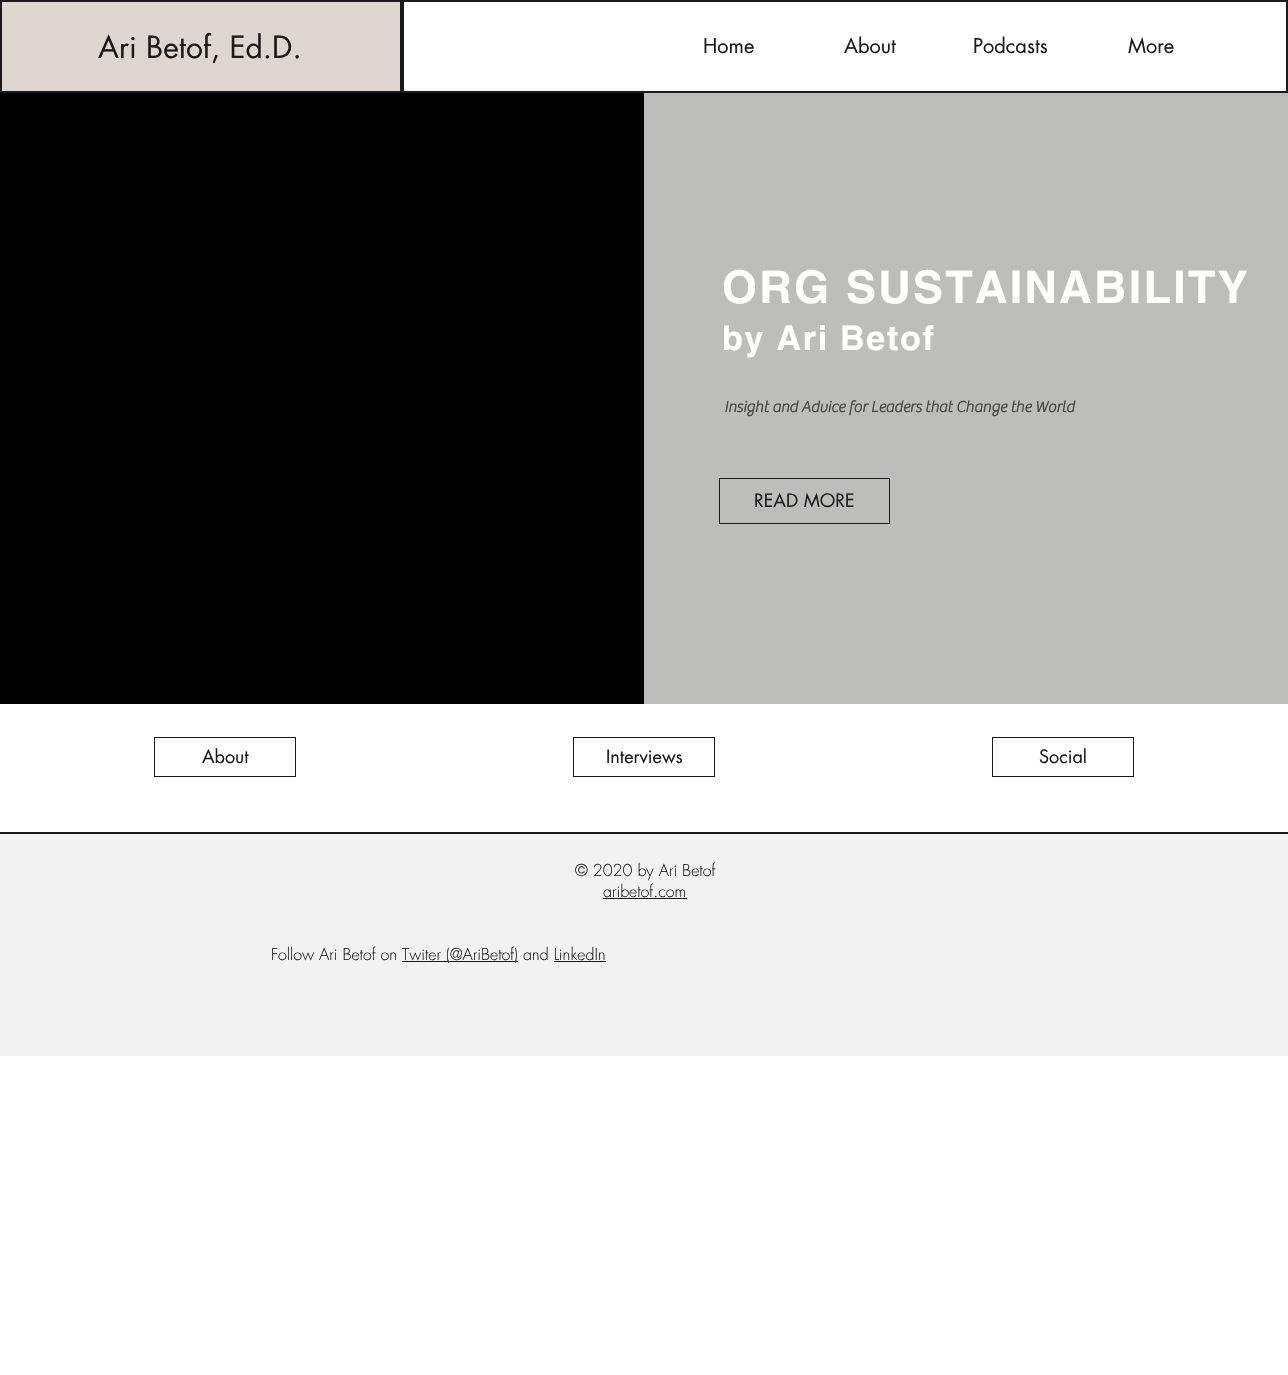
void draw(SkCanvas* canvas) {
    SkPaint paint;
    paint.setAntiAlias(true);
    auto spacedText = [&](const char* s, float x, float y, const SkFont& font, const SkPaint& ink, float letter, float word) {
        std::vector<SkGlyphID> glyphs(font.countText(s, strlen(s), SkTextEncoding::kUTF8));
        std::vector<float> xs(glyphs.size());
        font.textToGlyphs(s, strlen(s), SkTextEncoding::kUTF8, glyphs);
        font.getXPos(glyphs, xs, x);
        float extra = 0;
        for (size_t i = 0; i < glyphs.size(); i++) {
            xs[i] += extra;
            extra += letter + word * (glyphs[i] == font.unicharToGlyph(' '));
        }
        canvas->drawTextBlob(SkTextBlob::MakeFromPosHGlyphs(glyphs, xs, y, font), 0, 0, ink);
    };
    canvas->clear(0xFFFFFFFF);
    paint.setColor(0xFF1A1A1A);
    canvas->drawRect(SkRect::MakeXYWH(0, 0, 1288, 93), paint);
    paint.setColor(0xFFDED7CF);
    canvas->drawRect(SkRect::MakeXYWH(2, 2, 398, 89), paint);
    SkFont font1(fontMgr->matchFamilyStyle("futura", SkFontStyle::Normal()), 30);
    font1.setSubpixel(true);
    paint.setColor(0xFF1A1A1A);
    canvas->drawString("Ari Betof, Ed.D.", 98, 58, font1, paint);
    paint.setColor(0xFFFFFFFF);
    canvas->drawRect(SkRect::MakeXYWH(404, 2, 882, 89), paint);
    SkFont font2(fontMgr->matchFamilyStyle("futura", SkFontStyle::Normal()), 20);
    font2.setSubpixel(true);
    paint.setColor(0xFF1A1A1A);
    canvas->drawString("Home", 703, 53, font2, paint);
    canvas->drawString("About", 844, 53, font2, paint);
    canvas->drawString("Podcasts", 973, 53, font2, paint);
    canvas->drawString("More", 1128, 53, font2, paint);
    paint.setColor(0xFF000000);
    canvas->drawRect(SkRect::MakeXYWH(0, 93, 644, 611), paint);
    paint.setColor(0xFFBDBDBC);
    canvas->drawRect(SkRect::MakeXYWH(644, 93, 644, 611), paint);
    SkFont font3(fontMgr->matchFamilyStyle("helvetica", SkFontStyle::Bold()), 45);
    font3.setSubpixel(true);
    paint.setColor(0xFFFFFFFE);
    spacedText("ORG SUSTAINABILITY", 722, 303, font3, paint, 2.25f, 0);
    SkFont font4(fontMgr->matchFamilyStyle("helvetica", SkFontStyle::Bold()), 34);
    font4.setSubpixel(true);
    spacedText("by Ari Betof", 722, 350, font4, paint, 1.75f, 0);
    SkFont font5(fontMgr->matchFamilyStyle("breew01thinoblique", SkFontStyle::Bold()), 16);
    font5.setSubpixel(true);
    paint.setColor(0xFF474747);
    canvas->drawString("Insight and Advice for Leaders that Change the World", 724, 412, font5, paint);
    paint.setStyle(SkPaint::kStroke_Style);
    paint.setStrokeWidth(1);
    paint.setColor(0xFF1A1A1A);
    canvas->drawRect(SkRect::MakeXYWH(719.5f, 478.5f, 170, 45), paint);
    SkFont font6(fontMgr->matchFamilyStyle("futura", SkFontStyle::Normal()), 18);
    font6.setSubpixel(true);
    paint.setStyle(SkPaint::kFill_Style);
    canvas->drawString("READ MORE", 754, 507, font6, paint);
    paint.setStyle(SkPaint::kStroke_Style);
    canvas->drawRect(SkRect::MakeXYWH(154.5f, 737.5f, 141, 39), paint);
    paint.setStyle(SkPaint::kFill_Style);
    canvas->drawString("About", 202, 763, font6, paint);
    paint.setStyle(SkPaint::kStroke_Style);
    canvas->drawRect(SkRect::MakeXYWH(573.5f, 737.5f, 141, 39), paint);
    paint.setStyle(SkPaint::kFill_Style);
    canvas->drawString("Interviews", 606, 763, font6, paint);
    paint.setStyle(SkPaint::kStroke_Style);
    canvas->drawRect(SkRect::MakeXYWH(992.5f, 737.5f, 141, 39), paint);
    paint.setStyle(SkPaint::kFill_Style);
    canvas->drawString("Social", 1039, 763, font6, paint);
    paint.setColor(0xFFF2F2F2);
    canvas->drawRect(SkRect::MakeXYWH(0, 834, 1288, 222), paint);
    paint.setColor(0xFF1A1A1A);
    canvas->drawRect(SkRect::MakeXYWH(0, 832, 1288, 2), paint);
    SkFont font7(fontMgr->matchFamilyStyle("futura", SkFontStyle(300, SkFontStyle::kNormal_Width, SkFontStyle::kUpright_Slant)), 16);
    font7.setSubpixel(true);
    canvas->drawString("© 2020 by Ari Betof", 575, 876, font7, paint);
    canvas->drawString("aribetof.com", 603, 897, font7, paint);
    canvas->drawRect(SkRect::MakeXYWH(603, 898, 84, 1), paint);
    canvas->drawString("Follow Ari Betof on", 271, 960, font7, paint);
    canvas->drawRect(SkRect::MakeXYWH(402, 961, 116, 1), paint);
    canvas->drawString("Twiter (@AriBetof) and LinkedIn", 402, 960, font7, paint);
    canvas->drawRect(SkRect::MakeXYWH(554, 961, 52, 1), paint);
}
